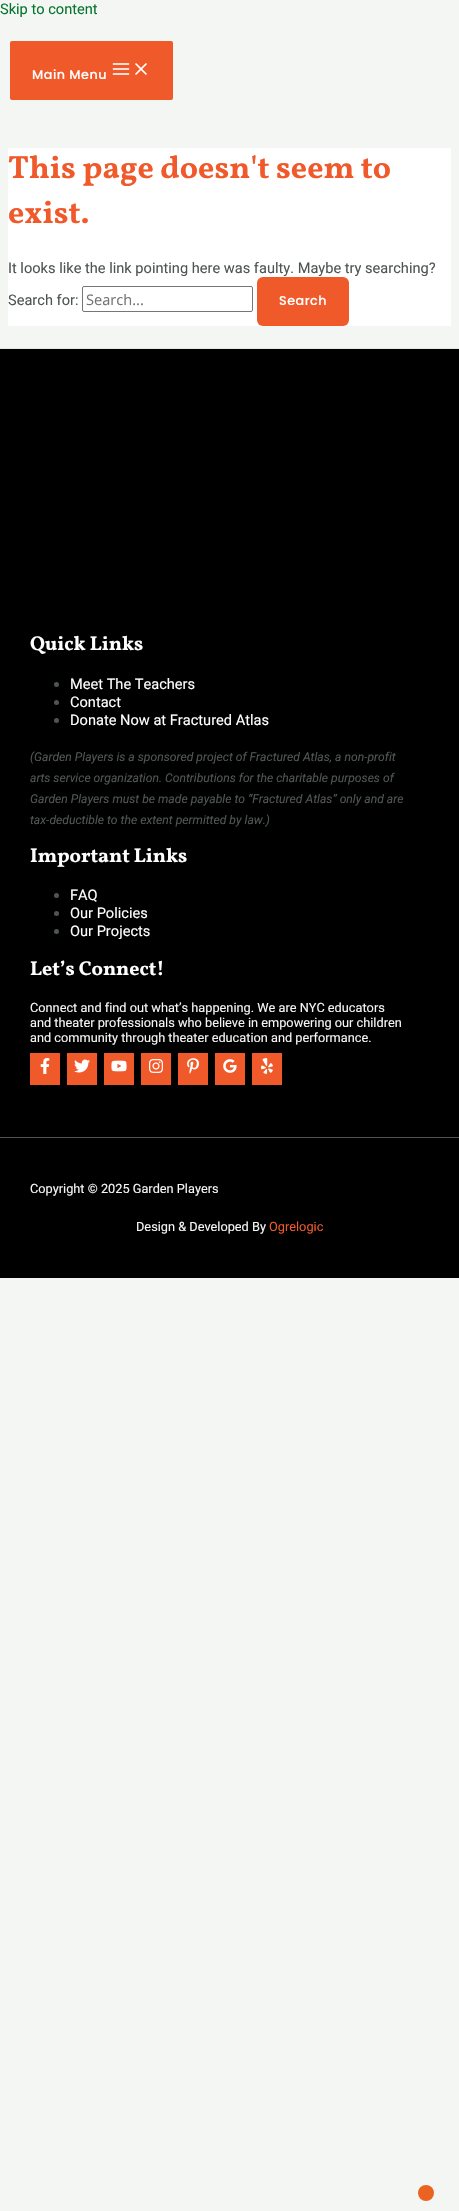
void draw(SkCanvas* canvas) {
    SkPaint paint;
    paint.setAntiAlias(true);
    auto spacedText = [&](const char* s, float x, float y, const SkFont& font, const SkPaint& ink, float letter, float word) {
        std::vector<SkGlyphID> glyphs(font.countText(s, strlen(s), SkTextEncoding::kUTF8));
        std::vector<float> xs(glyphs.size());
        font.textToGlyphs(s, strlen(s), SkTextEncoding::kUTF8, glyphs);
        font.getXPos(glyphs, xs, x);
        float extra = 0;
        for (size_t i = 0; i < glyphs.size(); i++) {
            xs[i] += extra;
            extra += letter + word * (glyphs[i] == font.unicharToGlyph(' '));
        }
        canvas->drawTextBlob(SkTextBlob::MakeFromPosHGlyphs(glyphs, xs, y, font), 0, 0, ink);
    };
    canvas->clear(0xFFF4F6F4);
    SkFont font1(fontMgr->matchFamilyStyle("Roboto", SkFontStyle::Normal()), 14.6f);
    font1.setSubpixel(true);
    paint.setColor(0xFF06752E);
    canvas->drawString("Skip to content", 0, 14, font1, paint);
    paint.setColor(0xFFF0592A);
    canvas->drawRoundRect(SkRect::MakeXYWH(10, 41, 163, 59), 2, 2, paint);
    SkFont font2(fontMgr->matchFamilyStyle("Poppins", SkFontStyle(500, SkFontStyle::kNormal_Width, SkFontStyle::kUpright_Slant)), 12.75f);
    font2.setSubpixel(true);
    paint.setColor(0xFFFFFFFF);
    spacedText("Main Menu", 32, 79, font2, paint, 0.5f, 0);
    canvas->drawImageRect(SkImages::DeferredFromEncodedData(SkData::MakeFromFileName("img1.png")), SkRect::MakeXYWH(112, 63, 18, 12), SkSamplingOptions());
    canvas->drawImageRect(SkImages::DeferredFromEncodedData(SkData::MakeFromFileName("img2.png")), SkRect::MakeXYWH(135, 63, 12, 12), SkSamplingOptions());
    canvas->drawRect(SkRect::MakeXYWH(8, 148, 443, 178), paint);
    SkFont font3(fontMgr->matchFamilyStyle("Vollkorn", SkFontStyle::Bold()), 32);
    font3.setSubpixel(true);
    paint.setColor(0xFFF0592A);
    canvas->drawString("This page doesn't seem to", 8, 178, font3, paint);
    canvas->drawString("exist.", 8, 223, font3, paint);
    paint.setColor(0xFF4E5652);
    canvas->drawString("It looks like the link pointing here was faulty. Maybe try searching?", 8, 273, font1, paint);
    canvas->drawString("Search for:", 8, 305, font1, paint);
    paint.setStyle(SkPaint::kStroke_Style);
    paint.setStrokeWidth(1);
    paint.setColor(0xFF767676);
    canvas->drawRoundRect(SkRect::MakeXYWH(82.5f, 286.5f, 170, 25), 1.5f, 1.5f, paint);
    SkFont font4(fontMgr->matchFamilyStyle("Open Sans", SkFontStyle::Normal()), 14.6f);
    font4.setSubpixel(true);
    paint.setStyle(SkPaint::kFill_Style);
    paint.setColor(0xFF757575);
    canvas->drawString("Search...", 86, 305, font4, paint);
    paint.setColor(0xFFF0592A);
    canvas->drawRoundRect(SkRect::MakeXYWH(257, 277, 92, 49), 6, 6, paint);
    paint.setColor(0xFFFFFFFF);
    spacedText("Search", 279, 305, font2, paint, 0.5f, 0);
    paint.setColor(0xFF000000);
    canvas->drawRect(SkRect::MakeXYWH(0, 349, 459, 929), paint);
    paint.setColor(0xFFE6E6E6);
    canvas->drawRect(SkRect::MakeXYWH(0, 348, 459, 1), paint);
    SkFont font5(fontMgr->matchFamilyStyle("Vollkorn", SkFontStyle::Bold()), 20);
    font5.setSubpixel(true);
    paint.setColor(0xFFFFFFFF);
    canvas->drawString("Quick Links", 30, 650, font5, paint);
    paint.setColor(0xFF4E5652);
    canvas->drawCircle(56.5f, 684.5f, 2.5f, paint);
    paint.setColor(0xFFFFFFFF);
    canvas->drawString("Meet The Teachers", 70, 689, font1, paint);
    paint.setColor(0xFF4E5652);
    canvas->drawCircle(56.5f, 702.5f, 2.5f, paint);
    paint.setColor(0xFFFFFFFF);
    canvas->drawString("Contact", 70, 707, font1, paint);
    paint.setColor(0xFF4E5652);
    canvas->drawCircle(56.5f, 720.5f, 2.5f, paint);
    paint.setColor(0xFFFFFFFF);
    canvas->drawString("Donate Now at Fractured Atlas", 70, 725, font1, paint);
    SkFont font6(fontMgr->matchFamilyStyle("Roboto", SkFontStyle::Italic()), 12.15f);
    font6.setSubpixel(true);
    paint.setColor(0xFF4E5652);
    canvas->drawString("(Garden Players is a sponsored project of Fractured Atlas, a non-profit", 30, 761, font6, paint);
    canvas->drawString("arts service organization. Contributions for the charitable purposes of", 30, 782, font6, paint);
    canvas->drawString("Garden Players must be made payable to “Fractured Atlas” only and are", 30, 803, font6, paint);
    canvas->drawString("tax-deductible to the extent permitted by law.)", 30, 824, font6, paint);
    paint.setColor(0xFFFFFFFF);
    canvas->drawString("Important Links", 30, 862, font5, paint);
    paint.setColor(0xFF4E5652);
    canvas->drawCircle(56.5f, 895.5f, 2.5f, paint);
    paint.setColor(0xFFFFFFFF);
    canvas->drawString("FAQ", 70, 900, font1, paint);
    paint.setColor(0xFF4E5652);
    canvas->drawCircle(56.5f, 913.5f, 2.5f, paint);
    paint.setColor(0xFFFFFFFF);
    canvas->drawString("Our Policies", 70, 918, font1, paint);
    paint.setColor(0xFF4E5652);
    canvas->drawCircle(56.5f, 931.5f, 2.5f, paint);
    paint.setColor(0xFFFFFFFF);
    canvas->drawString("Our Projects", 70, 936, font1, paint);
    canvas->drawString("Let’s Connect!", 30, 975, font5, paint);
    SkFont font7(fontMgr->matchFamilyStyle("Roboto", SkFontStyle::Normal()), 12.75f);
    font7.setSubpixel(true);
    paint.setColor(0xFFF4F6F4);
    canvas->drawString("Connect and find out what’s happening. We are NYC educators", 30, 1012, font7, paint);
    canvas->drawString("and theater professionals who believe in empowering our children", 30, 1027, font7, paint);
    canvas->drawString("and community through theater education and performance.", 30, 1042, font7, paint);
    paint.setColor(0xFFF0592A);
    canvas->drawRect(SkRect::MakeXYWH(30, 1053, 30, 32), paint);
    canvas->drawRect(SkRect::MakeXYWH(67, 1053, 30, 32), paint);
    canvas->drawRect(SkRect::MakeXYWH(104, 1053, 30, 32), paint);
    canvas->drawRect(SkRect::MakeXYWH(141, 1053, 30, 32), paint);
    canvas->drawRect(SkRect::MakeXYWH(178, 1053, 30, 32), paint);
    canvas->drawRect(SkRect::MakeXYWH(215, 1053, 30, 32), paint);
    canvas->drawRect(SkRect::MakeXYWH(252, 1053, 30, 32), paint);
    canvas->drawImageRect(SkImages::DeferredFromEncodedData(SkData::MakeFromFileName("img3.png")), SkRect::MakeXYWH(40, 1058, 10, 16), SkSamplingOptions());
    canvas->drawImageRect(SkImages::DeferredFromEncodedData(SkData::MakeFromFileName("img4.png")), SkRect::MakeXYWH(74, 1059, 16, 14), SkSamplingOptions());
    canvas->drawImageRect(SkImages::DeferredFromEncodedData(SkData::MakeFromFileName("img5.png")), SkRect::MakeXYWH(111, 1060, 16, 12), SkSamplingOptions());
    canvas->drawImageRect(SkImages::DeferredFromEncodedData(SkData::MakeFromFileName("img6.png")), SkRect::MakeXYWH(149, 1059, 14, 14), SkSamplingOptions());
    canvas->drawImageRect(SkImages::DeferredFromEncodedData(SkData::MakeFromFileName("img7.png")), SkRect::MakeXYWH(187, 1058, 12, 16), SkSamplingOptions());
    canvas->drawImageRect(SkImages::DeferredFromEncodedData(SkData::MakeFromFileName("img8.png")), SkRect::MakeXYWH(223, 1059, 14, 14), SkSamplingOptions());
    canvas->drawImageRect(SkImages::DeferredFromEncodedData(SkData::MakeFromFileName("img9.png")), SkRect::MakeXYWH(261, 1058, 12, 16), SkSamplingOptions());
    paint.setColor(0xFF4E5652);
    canvas->drawRect(SkRect::MakeXYWH(0, 1137, 459, 1), paint);
    paint.setColor(0xFFF4F6F4);
    canvas->drawString("Copyright © 2025 Garden Players", 30, 1193, font7, paint);
    canvas->drawString("Design & Developed By", 136, 1231, font7, paint);
    paint.setColor(0xFFF0592A);
    canvas->drawString("Ogrelogic", 269, 1231, font7, paint);
    paint.setColor(0xFFEB6321);
    canvas->drawCircle(426, 2193, 8, paint);
}
